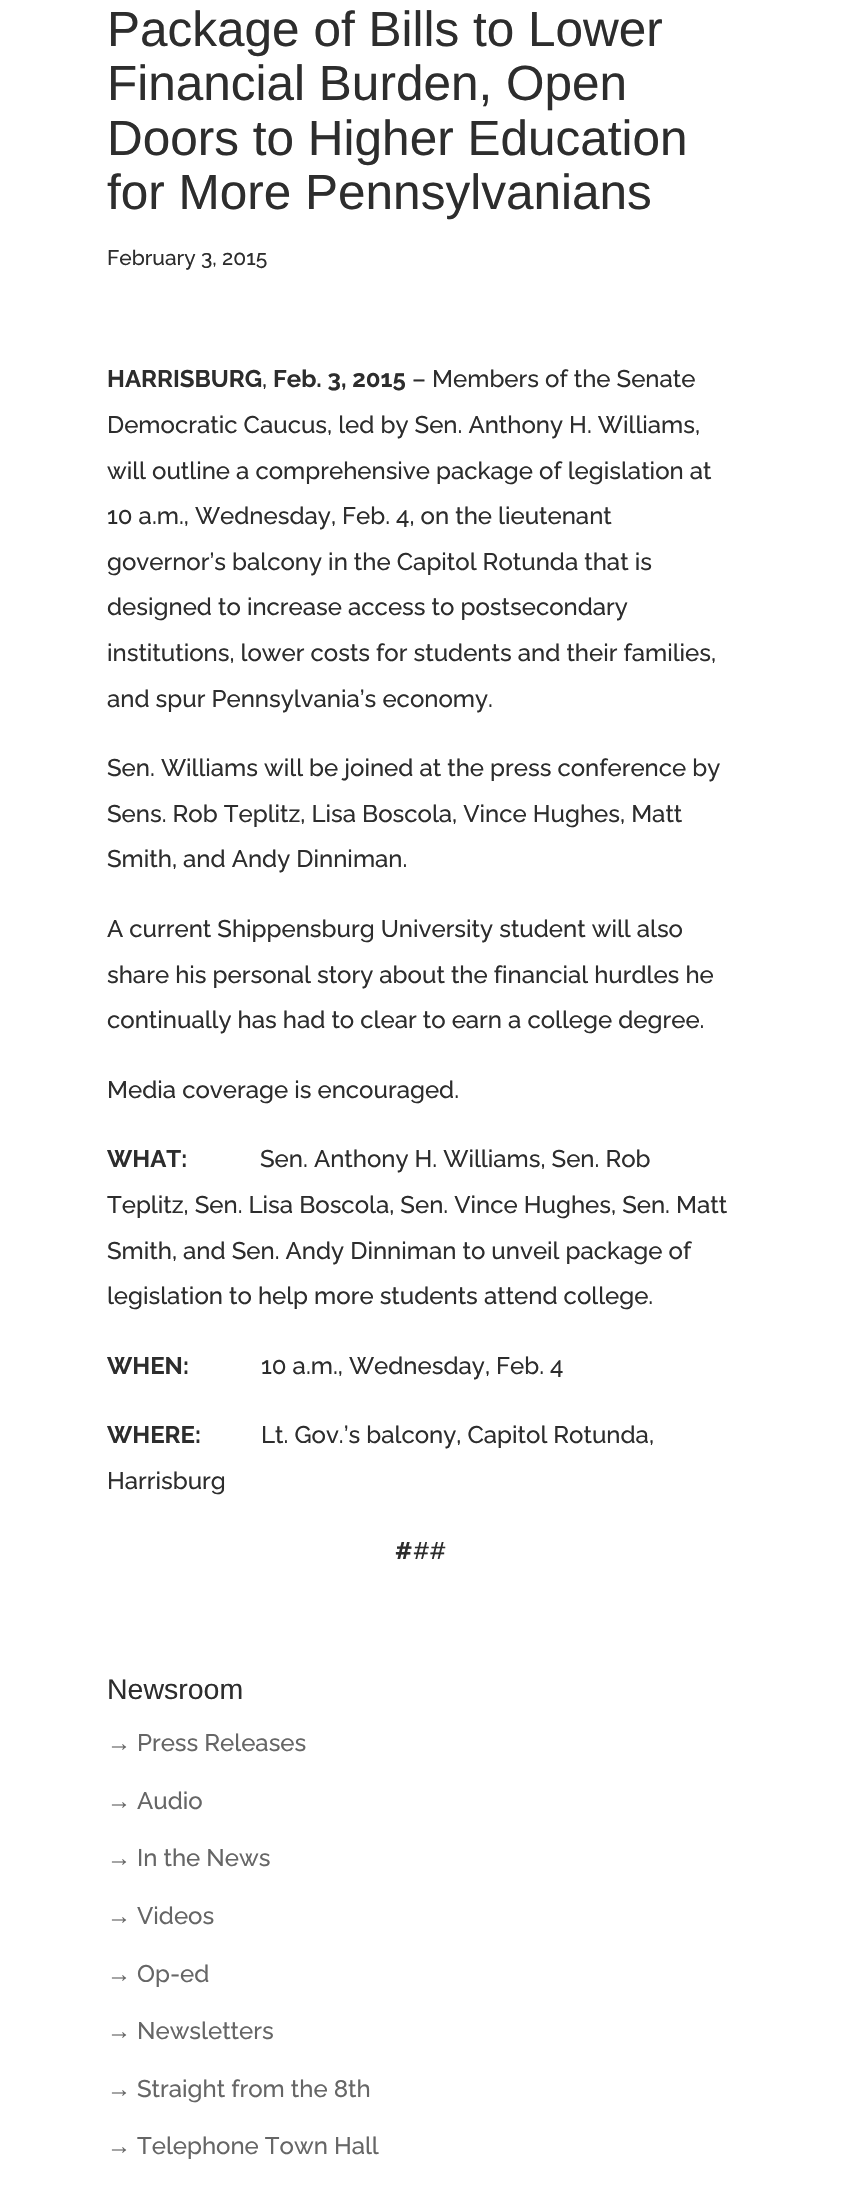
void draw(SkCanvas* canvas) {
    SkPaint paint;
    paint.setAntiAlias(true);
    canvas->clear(0xFFFFFFFF);
    SkFont font1(fontMgr->matchFamilyStyle("Liberation Sans", SkFontStyle::Normal()), 49.5f);
    font1.setSubpixel(true);
    paint.setColor(0xFF2D2D2D);
    canvas->drawString("Package of Bills to Lower", 107, 46, font1, paint);
    canvas->drawString("Financial Burden, Open", 107, 100, font1, paint);
    canvas->drawString("Doors to Higher Education", 107, 155, font1, paint);
    canvas->drawString("for More Pennsylvanians", 107, 209, font1, paint);
    SkFont font2(fontMgr->matchFamilyStyle("Raleway", SkFontStyle(500, SkFontStyle::kNormal_Width, SkFontStyle::kUpright_Slant)), 21);
    font2.setSubpixel(true);
    canvas->drawString("February 3, 2015", 107, 265, font2, paint);
    SkFont font3(fontMgr->matchFamilyStyle("Raleway", SkFontStyle::Bold()), 24);
    font3.setSubpixel(true);
    canvas->drawString("HARRISBURG", 107, 387, font3, paint);
    SkFont font4(fontMgr->matchFamilyStyle("Raleway", SkFontStyle(500, SkFontStyle::kNormal_Width, SkFontStyle::kUpright_Slant)), 24);
    font4.setSubpixel(true);
    canvas->drawString(",", 262, 387, font4, paint);
    canvas->drawString("Feb. 3, 2015", 273, 387, font3, paint);
    canvas->drawString("– Members of the Senate", 412, 387, font4, paint);
    canvas->drawString("Democratic Caucus, led by Sen. Anthony H. Williams,", 107, 433, font4, paint);
    canvas->drawString("will outline a comprehensive package of legislation at", 107, 479, font4, paint);
    canvas->drawString("10 a.m., Wednesday, Feb. 4, on the lieutenant", 107, 524, font4, paint);
    canvas->drawString("governor’s balcony in the Capitol Rotunda that is", 107, 570, font4, paint);
    canvas->drawString("designed to increase access to postsecondary", 107, 615, font4, paint);
    canvas->drawString("institutions, lower costs for students and their families,", 107, 661, font4, paint);
    canvas->drawString("and spur Pennsylvania’s economy.", 107, 707, font4, paint);
    canvas->drawString("Sen. Williams will be joined at the press conference by", 107, 776, font4, paint);
    canvas->drawString("Sens. Rob Teplitz, Lisa Boscola, Vince Hughes, Matt", 107, 822, font4, paint);
    canvas->drawString("Smith, and Andy Dinniman.", 107, 867, font4, paint);
    canvas->drawString("A current Shippensburg University student will also", 107, 937, font4, paint);
    canvas->drawString("share his personal story about the financial hurdles he", 107, 983, font4, paint);
    canvas->drawString("continually has had to clear to earn a college degree.", 107, 1028, font4, paint);
    canvas->drawString("Media coverage is encouraged.", 107, 1098, font4, paint);
    canvas->drawString("WHAT:", 107, 1167, font3, paint);
    canvas->drawString("Sen. Anthony H. Williams, Sen. Rob", 260, 1167, font4, paint);
    canvas->drawString("Teplitz, Sen. Lisa Boscola, Sen. Vince Hughes, Sen. Matt", 107, 1213, font4, paint);
    canvas->drawString("Smith, and Sen. Andy Dinniman to unveil package of", 107, 1259, font4, paint);
    canvas->drawString("legislation to help more students attend college.", 107, 1304, font4, paint);
    canvas->drawString("WHEN:", 107, 1374, font3, paint);
    canvas->drawString("10 a.m., Wednesday, Feb. 4", 261, 1374, font4, paint);
    canvas->drawString("WHERE:", 107, 1443, font3, paint);
    canvas->drawString("Lt. Gov.’s balcony, Capitol Rotunda,", 261, 1443, font4, paint);
    canvas->drawString("Harrisburg", 107, 1489, font4, paint);
    canvas->drawString("#", 395, 1559, font3, paint);
    canvas->drawString("##", 413, 1559, font4, paint);
    SkFont font5(fontMgr->matchFamilyStyle("Liberation Sans", SkFontStyle::Normal()), 28.5f);
    font5.setSubpixel(true);
    canvas->drawString("Newsroom", 107, 1699, font5, paint);
    SkFont font6(fontMgr->matchFamilyStyle("Liberation Sans", SkFontStyle::Normal()), 24);
    font6.setSubpixel(true);
    paint.setColor(0xFF666666);
    canvas->drawString("→", 107, 1751, font6, paint);
    canvas->drawString("Press Releases", 137, 1751, font4, paint);
    canvas->drawString("→", 107, 1809, font6, paint);
    canvas->drawString("Audio", 137, 1809, font4, paint);
    canvas->drawString("→", 107, 1866, font6, paint);
    canvas->drawString("In the News", 137, 1866, font4, paint);
    canvas->drawString("→", 107, 1924, font6, paint);
    canvas->drawString("Videos", 137, 1924, font4, paint);
    canvas->drawString("→", 107, 1982, font6, paint);
    canvas->drawString("Op-ed", 137, 1982, font4, paint);
    canvas->drawString("→", 107, 2039, font6, paint);
    canvas->drawString("Newsletters", 137, 2039, font4, paint);
    canvas->drawString("→", 107, 2097, font6, paint);
    canvas->drawString("Straight from the 8th", 137, 2097, font4, paint);
    canvas->drawString("→", 107, 2154, font6, paint);
    canvas->drawString("Telephone Town Hall", 137, 2154, font4, paint);
}
